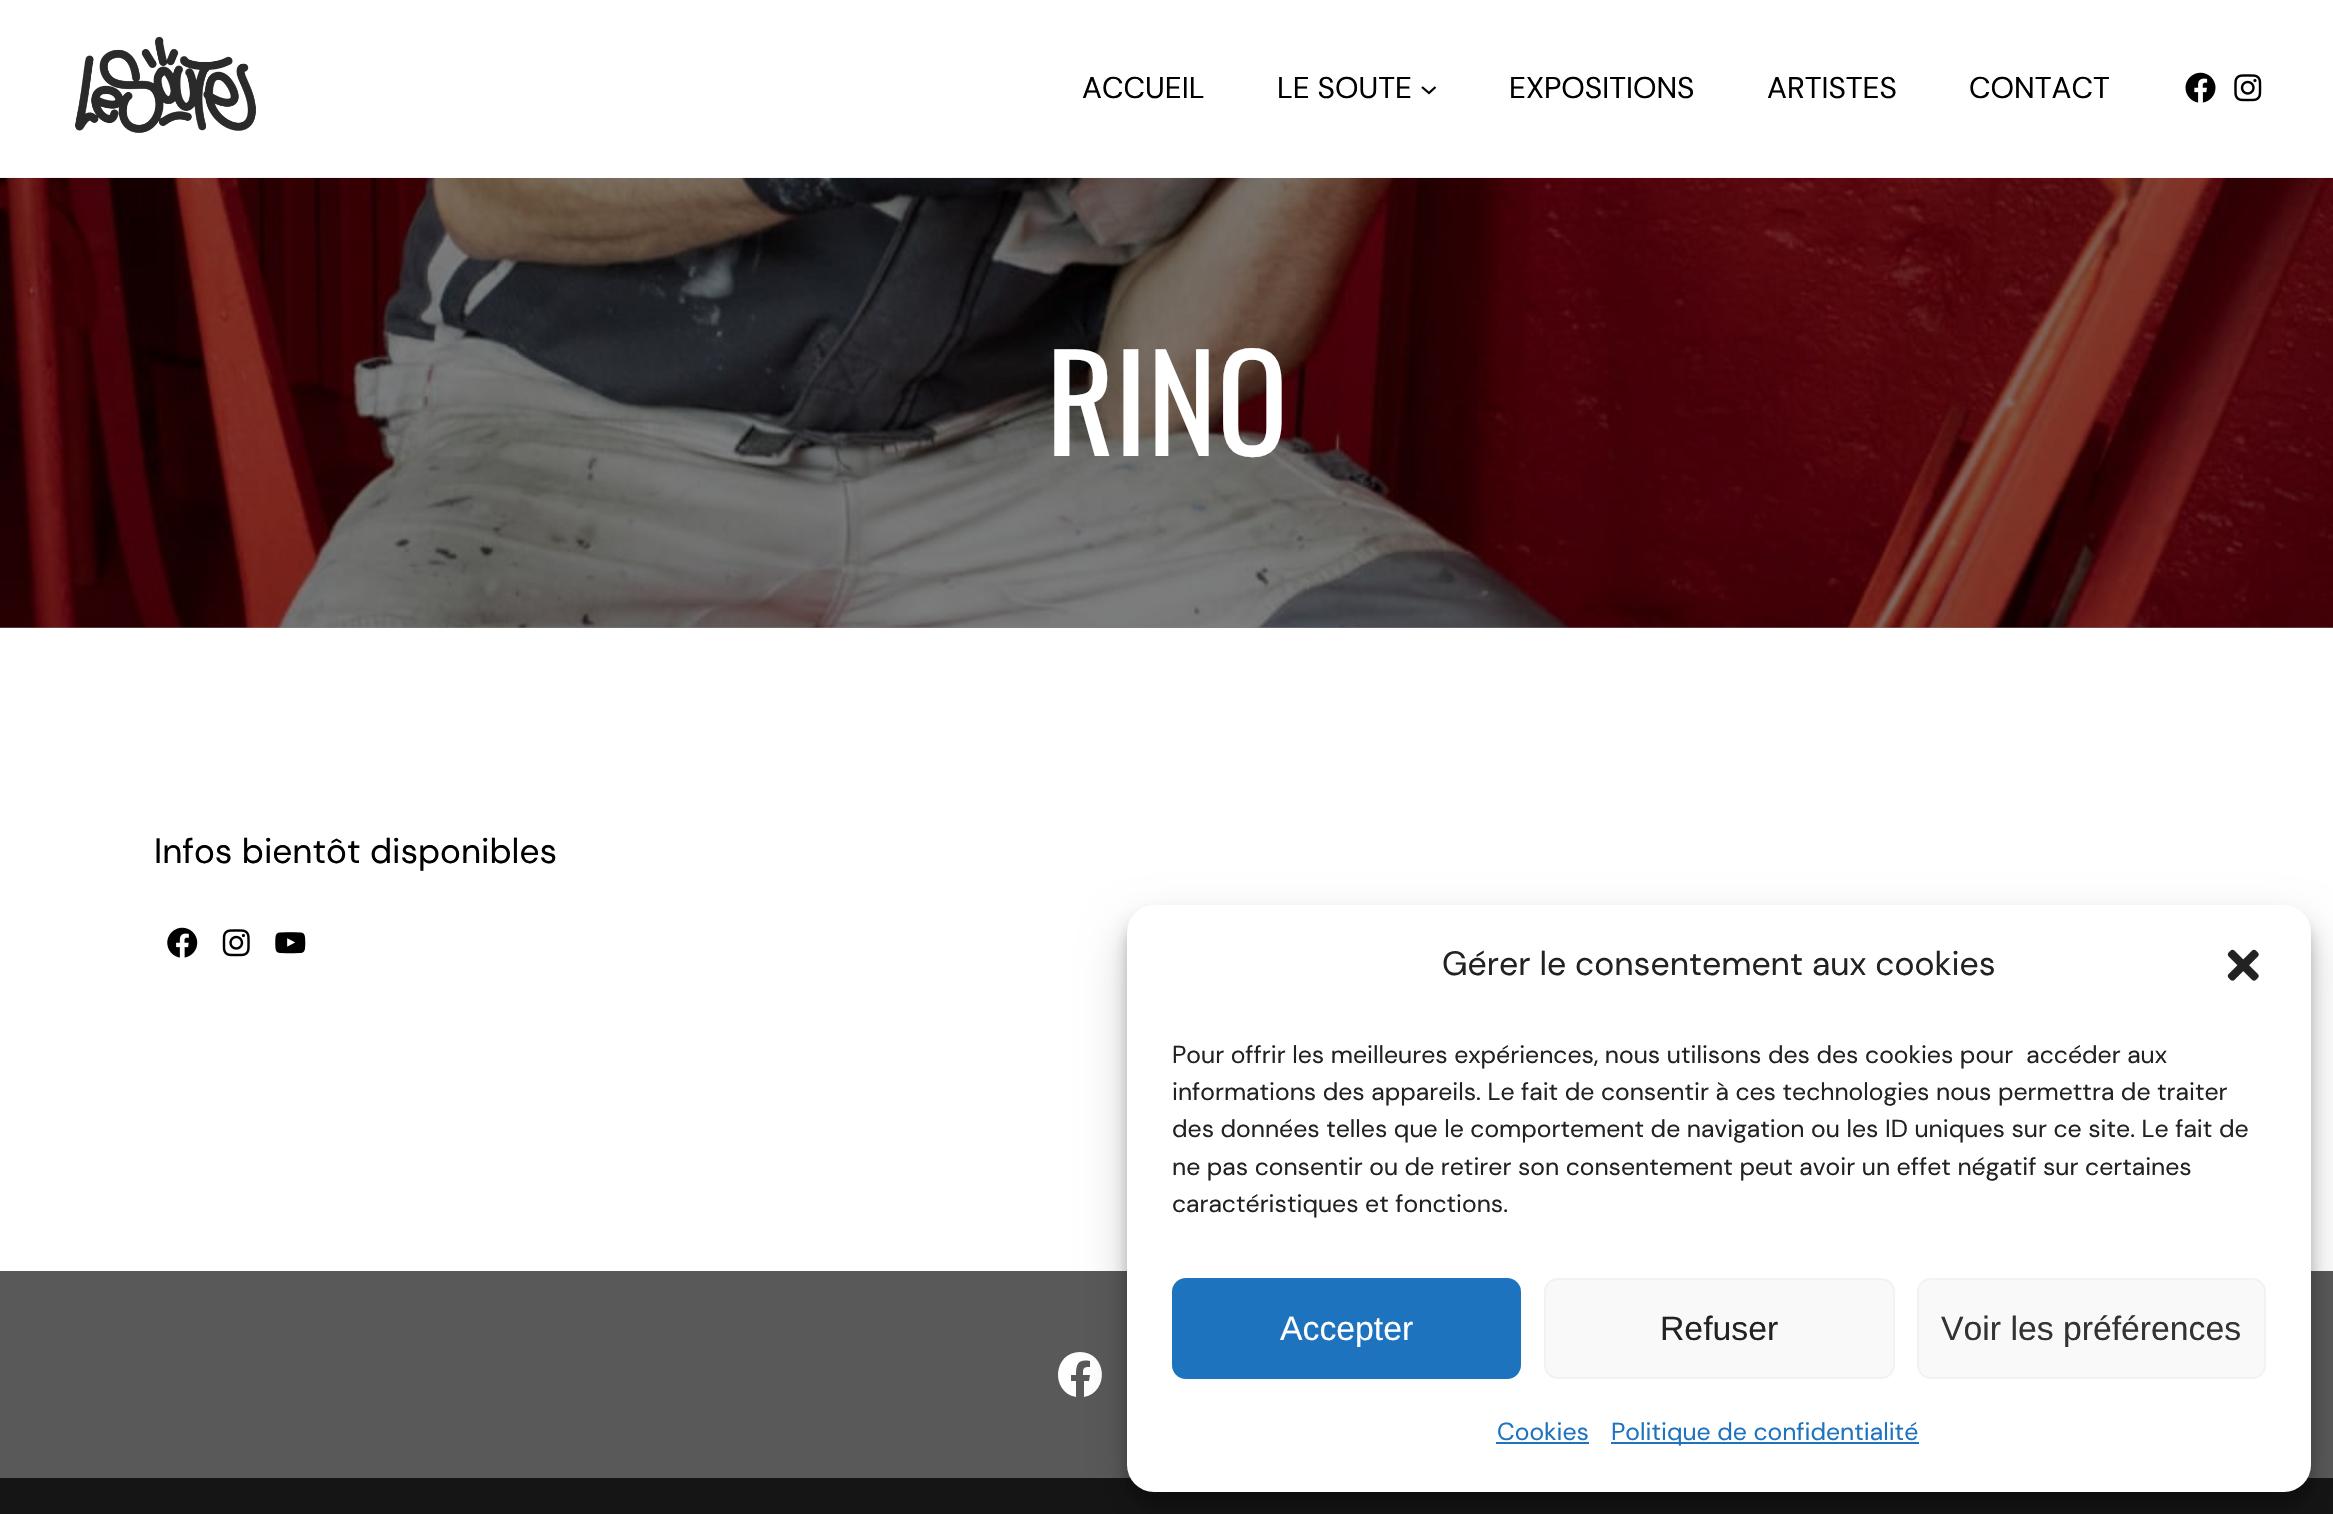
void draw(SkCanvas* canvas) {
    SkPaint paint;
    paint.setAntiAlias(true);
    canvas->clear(0xFFFFFFFF);
    paint.setColor(0xFF808080);
    canvas->drawRect(SkRect::MakeXYWH(0, 627, 2333, 1), paint);
    canvas->drawImageRect(SkImages::DeferredFromEncodedData(SkData::MakeFromFileName("img1.png")), SkRect::MakeXYWH(75, 36, 181, 97), SkSamplingOptions());
    SkFont font1(fontMgr->matchFamilyStyle("DM Sans", SkFontStyle::Normal()), 30);
    font1.setSubpixel(true);
    paint.setColor(0xFF000000);
    canvas->drawString("ACCUEIL", 1082, 98, font1, paint);
    canvas->drawString("LE SOUTE", 1277, 98, font1, paint);
    paint.setStyle(SkPaint::kStroke_Style);
    paint.setStrokeWidth(2.3f);
    canvas->drawPath(SkPathBuilder().moveTo(1422, 87).lineTo(1429, 93).lineTo(1435.5f, 87).detach(), paint);
    paint.setStyle(SkPaint::kFill_Style);
    canvas->drawString("EXPOSITIONS", 1509, 98, font1, paint);
    canvas->drawString("ARTISTES", 1767, 98, font1, paint);
    canvas->drawString("CONTACT", 1969, 98, font1, paint);
    canvas->drawImageRect(SkImages::DeferredFromEncodedData(SkData::MakeFromFileName("img2.png")), SkRect::MakeXYWH(2185, 72, 31, 31), SkSamplingOptions());
    canvas->drawImageRect(SkImages::DeferredFromEncodedData(SkData::MakeFromFileName("img3.png")), SkRect::MakeXYWH(2234, 74, 28, 28), SkSamplingOptions());
    canvas->drawImageRect(SkImages::DeferredFromEncodedData(SkData::MakeFromFileName("img4.png")), SkRect::MakeXYWH(0, 177, 2333, 451), SkSamplingOptions());
    SkFont font2(fontMgr->matchFamilyStyle("Oswald", SkFontStyle::Normal()), 132);
    font2.setSubpixel(true);
    paint.setColor(0xFFFFFFFF);
    canvas->drawString("RINO", 1046, 456, font2, paint);
    SkFont font3(fontMgr->matchFamilyStyle("DM Sans", SkFontStyle::Normal()), 35.2f);
    font3.setSubpixel(true);
    paint.setColor(0xFF000000);
    canvas->drawString("Infos bientôt disponibles", 154, 863, font3, paint);
    canvas->drawImageRect(SkImages::DeferredFromEncodedData(SkData::MakeFromFileName("img5.png")), SkRect::MakeXYWH(167, 927, 31, 31), SkSamplingOptions());
    canvas->drawImageRect(SkImages::DeferredFromEncodedData(SkData::MakeFromFileName("img6.png")), SkRect::MakeXYWH(222, 929, 28, 28), SkSamplingOptions());
    canvas->drawImageRect(SkImages::DeferredFromEncodedData(SkData::MakeFromFileName("img7.png")), SkRect::MakeXYWH(275, 932, 31, 22), SkSamplingOptions());
    paint.setColor(0xFF595959);
    canvas->drawRect(SkRect::MakeXYWH(0, 1271, 2333, 207), paint);
    paint.setColor(0xFFFFFFFF);
    canvas->drawPath(SkPathBuilder().moveTo(1080, 1352).cubicTo(1053, 1352, 1050, 1392, 1076, 1397).lineTo(1076, 1381).lineTo(1071, 1381).lineTo(1071, 1375).lineTo(1076, 1375).cubicTo(1076, 1364, 1078, 1359, 1090, 1361).lineTo(1090, 1367).cubicTo(1083, 1367, 1083, 1368, 1083, 1375).lineTo(1090, 1375).lineTo(1089, 1381).lineTo(1084, 1381).lineTo(1084, 1397).cubicTo(1110, 1392, 1107, 1352, 1080, 1352).close().detach(), paint);
    paint.setColor(0xFF151515);
    canvas->drawRect(SkRect::MakeXYWH(0, 1478, 2333, 36), paint);
    paint.setColor(0x3B000000);
    paint.setMaskFilter(SkMaskFilter::MakeBlur(kNormal_SkBlurStyle, 7));
    canvas->drawRoundRect(SkRect::MakeXYWH(1127, 918, 1184, 587), 27, 27, paint);
    paint.setMaskFilter(nullptr);
    paint.setColor(0x30000000);
    paint.setMaskFilter(SkMaskFilter::MakeBlur(kNormal_SkBlurStyle, 22.5f));
    canvas->drawRoundRect(SkRect::MakeXYWH(1127, 927, 1184, 587), 27, 27, paint);
    paint.setMaskFilter(nullptr);
    paint.setColor(0xFFFFFFFF);
    canvas->drawRoundRect(SkRect::MakeXYWH(1127, 905, 1184, 587), 27, 27, paint);
    SkFont font4(fontMgr->matchFamilyStyle("DM Sans", SkFontStyle::Normal()), 33.75f);
    font4.setSubpixel(true);
    paint.setColor(0xFF222222);
    canvas->drawString("Gérer le consentement aux cookies", 1442, 975, font4, paint);
    canvas->drawImageRect(SkImages::DeferredFromEncodedData(SkData::MakeFromFileName("img8.png")), SkRect::MakeXYWH(2227, 949, 32, 32), SkSamplingOptions());
    SkFont font5(fontMgr->matchFamilyStyle("DM Sans", SkFontStyle::Normal()), 24.75f);
    font5.setSubpixel(true);
    canvas->drawString("Pour offrir les meilleures expériences, nous utilisons des des cookies pour  accéder aux", 1172, 1063, font5, paint);
    canvas->drawString("informations des appareils. Le fait de consentir à ces technologies nous permettra de traiter", 1172, 1100, font5, paint);
    canvas->drawString("des données telles que le comportement de navigation ou les ID uniques sur ce site. Le fait de", 1172, 1137, font5, paint);
    canvas->drawString("ne pas consentir ou de retirer son consentement peut avoir un effet négatif sur certaines", 1172, 1175, font5, paint);
    canvas->drawString("caractéristiques et fonctions.", 1172, 1212, font5, paint);
    paint.setColor(0xFF1E73BE);
    canvas->drawRoundRect(SkRect::MakeXYWH(1173, 1279, 347, 99), 13, 13, paint);
    paint.setStyle(SkPaint::kStroke_Style);
    paint.setStrokeWidth(2);
    canvas->drawRoundRect(SkRect::MakeXYWH(1173, 1279, 347, 99), 13, 13, paint);
    SkFont font6(fontMgr->matchFamilyStyle("Liberation Sans", SkFontStyle::Normal()), 33.75f);
    font6.setSubpixel(true);
    paint.setStyle(SkPaint::kFill_Style);
    paint.setColor(0xFFFFFFFF);
    canvas->drawString("Accepter", 1280, 1340, font6, paint);
    paint.setColor(0xFFF9F9F9);
    canvas->drawRoundRect(SkRect::MakeXYWH(1545, 1279, 349, 99), 13, 13, paint);
    paint.setStyle(SkPaint::kStroke_Style);
    paint.setColor(0xFFF2F2F2);
    canvas->drawRoundRect(SkRect::MakeXYWH(1545, 1279, 349, 99), 13, 13, paint);
    paint.setStyle(SkPaint::kFill_Style);
    paint.setColor(0xFF222222);
    canvas->drawString("Refuser", 1660, 1340, font6, paint);
    paint.setColor(0xFFF9F9F9);
    canvas->drawRoundRect(SkRect::MakeXYWH(1918, 1279, 347, 99), 13, 13, paint);
    paint.setStyle(SkPaint::kStroke_Style);
    paint.setColor(0xFFF2F2F2);
    canvas->drawRoundRect(SkRect::MakeXYWH(1918, 1279, 347, 99), 13, 13, paint);
    paint.setStyle(SkPaint::kFill_Style);
    paint.setColor(0xFF333333);
    canvas->drawString("Voir les préférences", 1941, 1340, font6, paint);
    paint.setColor(0xFF1E73BE);
    canvas->drawString("Cookies", 1497, 1440, font5, paint);
    canvas->drawRect(SkRect::MakeXYWH(1496, 1442, 93, 2), paint);
    canvas->drawRect(SkRect::MakeXYWH(1611, 1442, 308, 2), paint);
    canvas->drawString("Politique de confidentialité", 1611, 1440, font5, paint);
}
